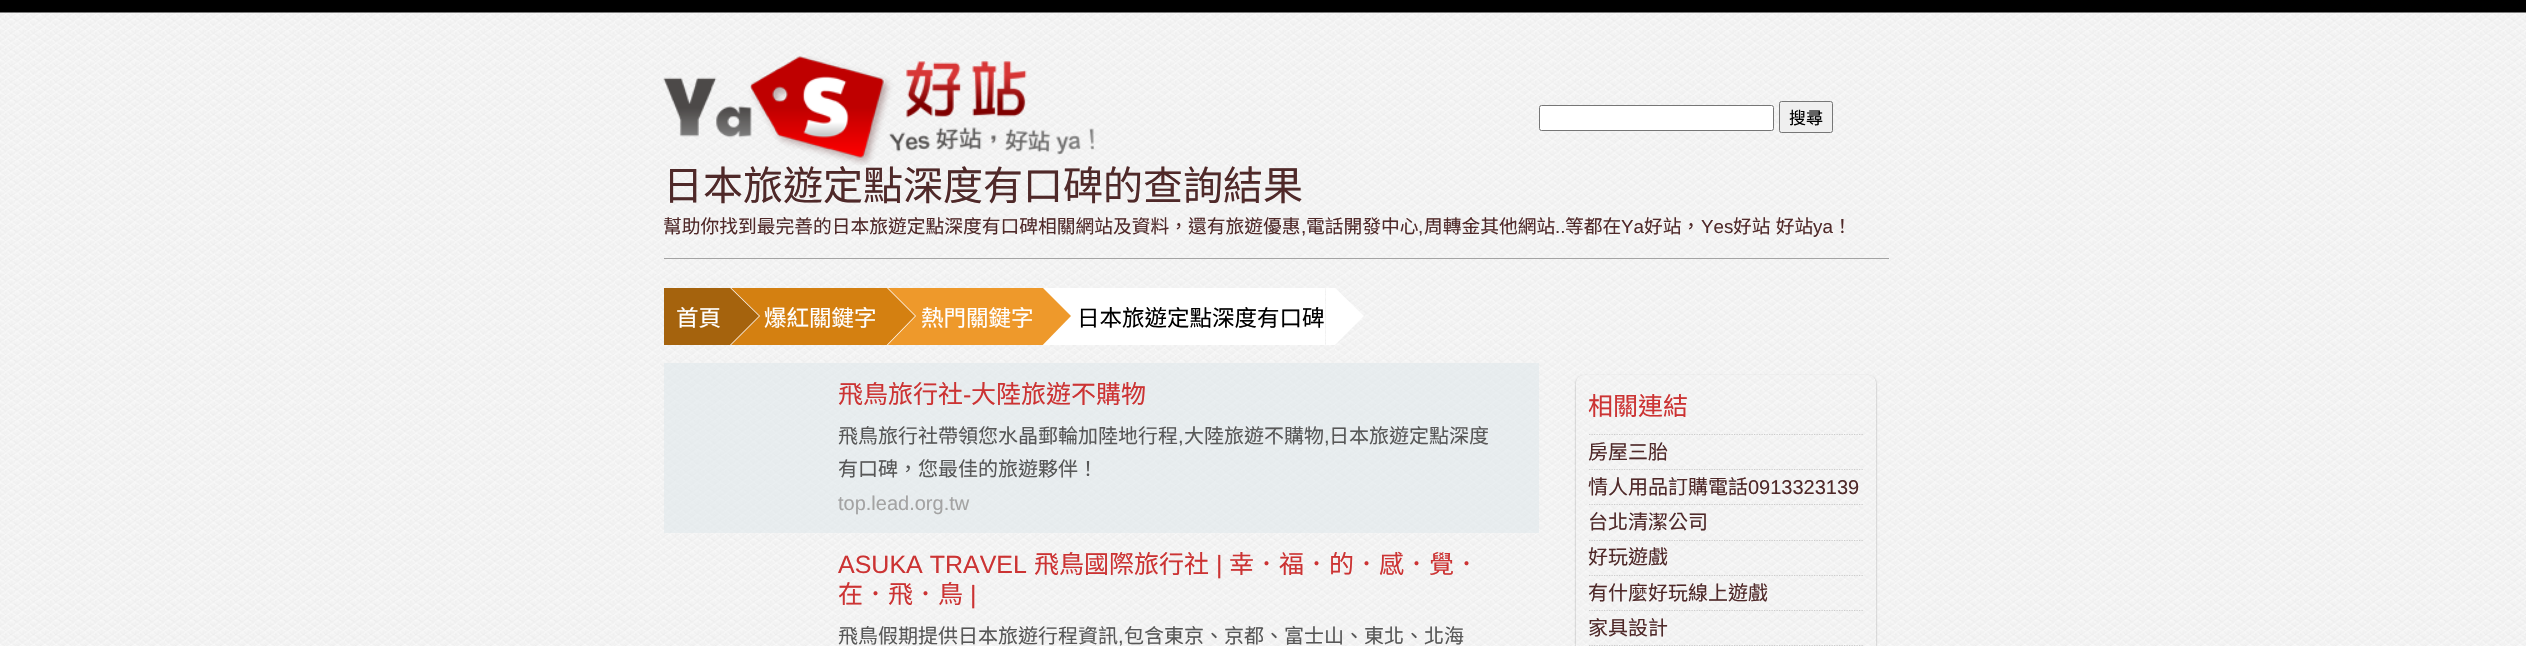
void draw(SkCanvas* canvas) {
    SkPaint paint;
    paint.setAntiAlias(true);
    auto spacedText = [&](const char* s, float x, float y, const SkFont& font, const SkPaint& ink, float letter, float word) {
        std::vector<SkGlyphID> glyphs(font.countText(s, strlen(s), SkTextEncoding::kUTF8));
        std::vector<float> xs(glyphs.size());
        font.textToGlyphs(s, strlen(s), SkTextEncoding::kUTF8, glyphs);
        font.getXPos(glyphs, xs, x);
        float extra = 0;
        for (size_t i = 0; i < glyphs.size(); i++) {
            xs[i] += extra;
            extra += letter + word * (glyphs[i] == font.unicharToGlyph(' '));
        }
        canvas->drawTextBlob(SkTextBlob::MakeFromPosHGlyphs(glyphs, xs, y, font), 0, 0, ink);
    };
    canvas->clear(0xFF000000);
    canvas->drawImageRect(SkImages::DeferredFromEncodedData(SkData::MakeFromFileName("img1.png")), SkRect::MakeXYWH(0, 12, 2526, 634), SkSamplingOptions());
    canvas->drawImageRect(SkImages::DeferredFromEncodedData(SkData::MakeFromFileName("img2.png")), SkRect::MakeXYWH(663, 56, 431, 109), SkSamplingOptions());
    paint.setColor(0xFFFFFFFF);
    canvas->drawRoundRect(SkRect::MakeXYWH(1539.5f, 105.5f, 234, 25), 2, 2, paint);
    paint.setStyle(SkPaint::kStroke_Style);
    paint.setStrokeWidth(1);
    paint.setColor(0xFF767676);
    canvas->drawRoundRect(SkRect::MakeXYWH(1539.5f, 105.5f, 234, 25), 2, 2, paint);
    paint.setStyle(SkPaint::kFill_Style);
    paint.setColor(0xFFEFEFEF);
    canvas->drawRoundRect(SkRect::MakeXYWH(1779.5f, 101.5f, 53, 31), 2, 2, paint);
    paint.setStyle(SkPaint::kStroke_Style);
    paint.setColor(0xFF767676);
    canvas->drawRoundRect(SkRect::MakeXYWH(1779.5f, 101.5f, 53, 31), 2, 2, paint);
    SkFont font1(fontMgr->matchFamilyStyle("Noto Sans CJK TC", SkFontStyle::Normal()), 17);
    font1.setSubpixel(true);
    paint.setStyle(SkPaint::kFill_Style);
    paint.setColor(0xFF000000);
    canvas->drawString("搜尋", 1789, 124, font1, paint);
    SkFont font2(fontMgr->matchFamilyStyle("Noto Sans CJK TC", SkFontStyle::Normal()), 40);
    font2.setSubpixel(true);
    paint.setColor(0xFF4F2929);
    canvas->drawString("日本旅遊定點深度有口碑的查詢結果", 663, 200, font2, paint);
    paint.setColor(0xFFA3A3A3);
    canvas->drawRect(SkRect::MakeXYWH(664, 258, 1225, 1), paint);
    SkFont font3(fontMgr->matchFamilyStyle("Noto Sans CJK TC", SkFontStyle::Normal()), 18.75f);
    font3.setSubpixel(true);
    paint.setColor(0xFF4F2929);
    canvas->drawString("幫助你找到最完善的日本旅遊定點深度有口碑相關網站及資料，還有旅遊優惠", 663, 233, font3, paint);
    SkFont font4(fontMgr->matchFamilyStyle("Liberation Sans", SkFontStyle::Normal()), 18.75f);
    font4.setSubpixel(true);
    canvas->drawString(",", 1301, 233, font4, paint);
    canvas->drawString("電話開發中心", 1306, 233, font3, paint);
    canvas->drawString(",", 1418, 233, font4, paint);
    canvas->drawString("周轉金其他網站", 1424, 233, font3, paint);
    canvas->drawString("..", 1555, 233, font4, paint);
    canvas->drawString("等都在", 1565, 233, font3, paint);
    canvas->drawString("Ya", 1621, 233, font4, paint);
    canvas->drawString("好站，", 1644, 233, font3, paint);
    canvas->drawString("Yes", 1701, 233, font4, paint);
    spacedText("好站 好站", 1733, 233, font3, paint, 0, 1);
    canvas->drawString("ya", 1813, 233, font4, paint);
    canvas->drawString("！", 1833, 233, font3, paint);
    paint.setColor(0xFFA5630D);
    canvas->drawRect(SkRect::MakeXYWH(664, 288, 57, 57), paint);
    paint.setColor(0xFFD48011);
    canvas->drawRect(SkRect::MakeXYWH(731, 288, 147, 57), paint);
    canvas->save();
    canvas->clipRect(SkRect::MakeXYWH(664, 288, 1200, 57));
    paint.setColor(0xFFFFFFFF);
    canvas->drawPath(SkPathBuilder().moveTo(722, 354).lineTo(722, 279).lineTo(760, 316).close().detach(), paint);
    paint.setColor(0xFFA5630D);
    canvas->drawPath(SkPathBuilder().moveTo(721, 354).lineTo(721, 279).lineTo(759, 316).close().detach(), paint);
    canvas->restore();
    SkFont font5(fontMgr->matchFamilyStyle("Noto Sans CJK TC", SkFontStyle::Normal()), 22.5f);
    font5.setSubpixel(true);
    paint.setColor(0xFFFFFFFF);
    canvas->drawString("首頁", 676, 326, font5, paint);
    paint.setColor(0xFFEE992B);
    canvas->drawRect(SkRect::MakeXYWH(887, 288, 147, 57), paint);
    canvas->save();
    canvas->clipRect(SkRect::MakeXYWH(664, 288, 1200, 57));
    paint.setColor(0xFFFFFFFF);
    canvas->drawPath(SkPathBuilder().moveTo(879, 354).lineTo(879, 279).lineTo(916, 316).close().detach(), paint);
    paint.setColor(0xFFD48011);
    canvas->drawPath(SkPathBuilder().moveTo(878, 354).lineTo(878, 279).lineTo(915, 316).close().detach(), paint);
    canvas->restore();
    paint.setColor(0xFFFFFFFF);
    canvas->drawString("爆紅關鍵字", 764, 326, font5, paint);
    canvas->drawString("熱門關鍵字", 921, 326, font5, paint);
    canvas->drawRect(SkRect::MakeXYWH(1042, 288, 283, 57), paint);
    canvas->save();
    canvas->clipRect(SkRect::MakeXYWH(664, 288, 1200, 57));
    paint.setColor(0xFFEE992B);
    canvas->drawPath(SkPathBuilder().moveTo(1034, 354).lineTo(1034, 279).lineTo(1071, 316).close().detach(), paint);
    canvas->restore();
    paint.setColor(0xFF000000);
    canvas->drawString("日本旅遊定點深度有口碑", 1077, 326, font5, paint);
    canvas->save();
    canvas->clipRect(SkRect::MakeXYWH(664, 288, 1200, 57));
    paint.setColor(0xFFFFFFFF);
    canvas->drawPath(SkPathBuilder().moveTo(1326, 354).lineTo(1326, 279).lineTo(1364, 316).close().detach(), paint);
    canvas->restore();
    paint.setColor(0x99DFE7EB);
    canvas->drawRect(SkRect::MakeXYWH(664, 363, 875, 170), paint);
    SkFont font6(fontMgr->matchFamilyStyle("Noto Sans CJK TC", SkFontStyle::Normal()), 25);
    font6.setSubpixel(true);
    paint.setColor(0xFFCC3333);
    canvas->drawString("飛鳥旅行社", 838, 403, font6, paint);
    SkFont font7(fontMgr->matchFamilyStyle("Liberation Sans", SkFontStyle::Normal()), 25);
    font7.setSubpixel(true);
    canvas->drawString("-", 963, 403, font7, paint);
    canvas->drawString("大陸旅遊不購物", 971, 403, font6, paint);
    SkFont font8(fontMgr->matchFamilyStyle("Noto Sans CJK TC", SkFontStyle::Normal()), 20);
    font8.setSubpixel(true);
    paint.setColor(0xFF575757);
    canvas->drawString("飛鳥旅行社帶領您水晶郵輪加陸地行程", 838, 443, font8, paint);
    SkFont font9(fontMgr->matchFamilyStyle("Liberation Sans", SkFontStyle::Normal()), 20);
    font9.setSubpixel(true);
    canvas->drawString(",", 1178, 443, font9, paint);
    canvas->drawString("大陸旅遊不購物", 1184, 443, font8, paint);
    canvas->drawString(",", 1324, 443, font9, paint);
    canvas->drawString("日本旅遊定點深度", 1329, 443, font8, paint);
    canvas->drawString("有口碑，您最佳的旅遊夥伴！", 838, 476, font8, paint);
    paint.setColor(0xFFA3A3A3);
    canvas->drawString("top.lead.org.tw", 838, 510, font9, paint);
    paint.setColor(0xFFCC3333);
    canvas->drawString("ASUKA TRAVEL", 838, 573, font7, paint);
    canvas->drawString("飛鳥國際旅行社", 1034, 573, font6, paint);
    canvas->drawString("|", 1216, 573, font7, paint);
    canvas->drawString("幸．福．的．感．覺．", 1229, 573, font6, paint);
    canvas->drawString("在．飛．鳥", 838, 603, font6, paint);
    canvas->drawString("|", 970, 603, font7, paint);
    paint.setColor(0xFF575757);
    canvas->drawString("飛鳥假期提供日本旅遊行程資訊", 838, 643, font8, paint);
    canvas->drawString(",", 1118, 643, font9, paint);
    canvas->drawString("包含東京、京都、富士山、東北、北海", 1124, 643, font8, paint);
    canvas->save();
    canvas->clipPath(SkPathBuilder(SkPathFillType::kEvenOdd).moveTo(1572, 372).lineTo(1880, 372).lineTo(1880, 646).lineTo(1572, 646).close().moveTo(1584, 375).lineTo(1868, 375).cubicTo(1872.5f, 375, 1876, 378.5f, 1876, 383).lineTo(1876, 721).cubicTo(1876, 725.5f, 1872.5f, 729, 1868, 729).lineTo(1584, 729).cubicTo(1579.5f, 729, 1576, 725.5f, 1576, 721).lineTo(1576, 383).cubicTo(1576, 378.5f, 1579.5f, 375, 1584, 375).close().detach(), true);
    paint.setColor(0x80323232);
    paint.setMaskFilter(SkMaskFilter::MakeBlur(kNormal_SkBlurStyle, 1));
    canvas->drawRoundRect(SkRect::MakeXYWH(1576, 376, 300, 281), 8, 8, paint);
    paint.setMaskFilter(nullptr);
    canvas->restore();
    paint.setColor(0xFFCC3333);
    canvas->drawString("相關連結", 1588, 415, font6, paint);
    paint.setStyle(SkPaint::kStroke_Style);
    paint.setStrokeWidth(1.2f);
    paint.setColor(0xFFCCCCCC);
    paint.setPathEffect(SkDashPathEffect::Make({{1.25f, 1.25f}}, 0));
    canvas->drawPath(SkPathBuilder().moveTo(1589, 434.5f).lineTo(1864, 434.5f).detach(), paint);
    paint.setPathEffect(nullptr);
    paint.setPathEffect(SkDashPathEffect::Make({{1.25f, 1.25f}}, 0));
    canvas->drawPath(SkPathBuilder().moveTo(1589, 469.5f).lineTo(1864, 469.5f).detach(), paint);
    paint.setPathEffect(nullptr);
    paint.setStyle(SkPaint::kFill_Style);
    paint.setColor(0xFF4F2929);
    canvas->drawString("房屋三胎", 1588, 459, font8, paint);
    paint.setStyle(SkPaint::kStroke_Style);
    paint.setColor(0xFFCCCCCC);
    paint.setPathEffect(SkDashPathEffect::Make({{1.25f, 1.25f}}, 0));
    canvas->drawPath(SkPathBuilder().moveTo(1589, 504.5f).lineTo(1864, 504.5f).detach(), paint);
    paint.setPathEffect(nullptr);
    paint.setStyle(SkPaint::kFill_Style);
    paint.setColor(0xFF4F2929);
    canvas->drawString("情人用品訂購電話", 1588, 494, font8, paint);
    canvas->drawString("0913323139", 1748, 494, font9, paint);
    paint.setStyle(SkPaint::kStroke_Style);
    paint.setColor(0xFFCCCCCC);
    paint.setPathEffect(SkDashPathEffect::Make({{1.25f, 1.25f}}, 0));
    canvas->drawPath(SkPathBuilder().moveTo(1589, 540.5f).lineTo(1864, 540.5f).detach(), paint);
    paint.setPathEffect(nullptr);
    paint.setStyle(SkPaint::kFill_Style);
    paint.setColor(0xFF4F2929);
    canvas->drawString("台北清潔公司", 1588, 529, font8, paint);
    paint.setStyle(SkPaint::kStroke_Style);
    paint.setColor(0xFFCCCCCC);
    paint.setPathEffect(SkDashPathEffect::Make({{1.25f, 1.25f}}, 0));
    canvas->drawPath(SkPathBuilder().moveTo(1589, 575.5f).lineTo(1864, 575.5f).detach(), paint);
    paint.setPathEffect(nullptr);
    paint.setStyle(SkPaint::kFill_Style);
    paint.setColor(0xFF4F2929);
    canvas->drawString("好玩遊戲", 1588, 564, font8, paint);
    paint.setStyle(SkPaint::kStroke_Style);
    paint.setColor(0xFFCCCCCC);
    paint.setPathEffect(SkDashPathEffect::Make({{1.25f, 1.25f}}, 0));
    canvas->drawPath(SkPathBuilder().moveTo(1589, 610.5f).lineTo(1864, 610.5f).detach(), paint);
    paint.setPathEffect(nullptr);
    paint.setStyle(SkPaint::kFill_Style);
    paint.setColor(0xFF4F2929);
    canvas->drawString("有什麼好玩線上遊戲", 1588, 600, font8, paint);
    paint.setStyle(SkPaint::kStroke_Style);
    paint.setColor(0xFFCCCCCC);
    paint.setPathEffect(SkDashPathEffect::Make({{1.25f, 1.25f}}, 0));
    canvas->drawPath(SkPathBuilder().moveTo(1589, 645.5f).lineTo(1864, 645.5f).detach(), paint);
    paint.setPathEffect(nullptr);
    paint.setStyle(SkPaint::kFill_Style);
    paint.setColor(0xFF4F2929);
    canvas->drawString("家具設計", 1588, 635, font8, paint);
}
